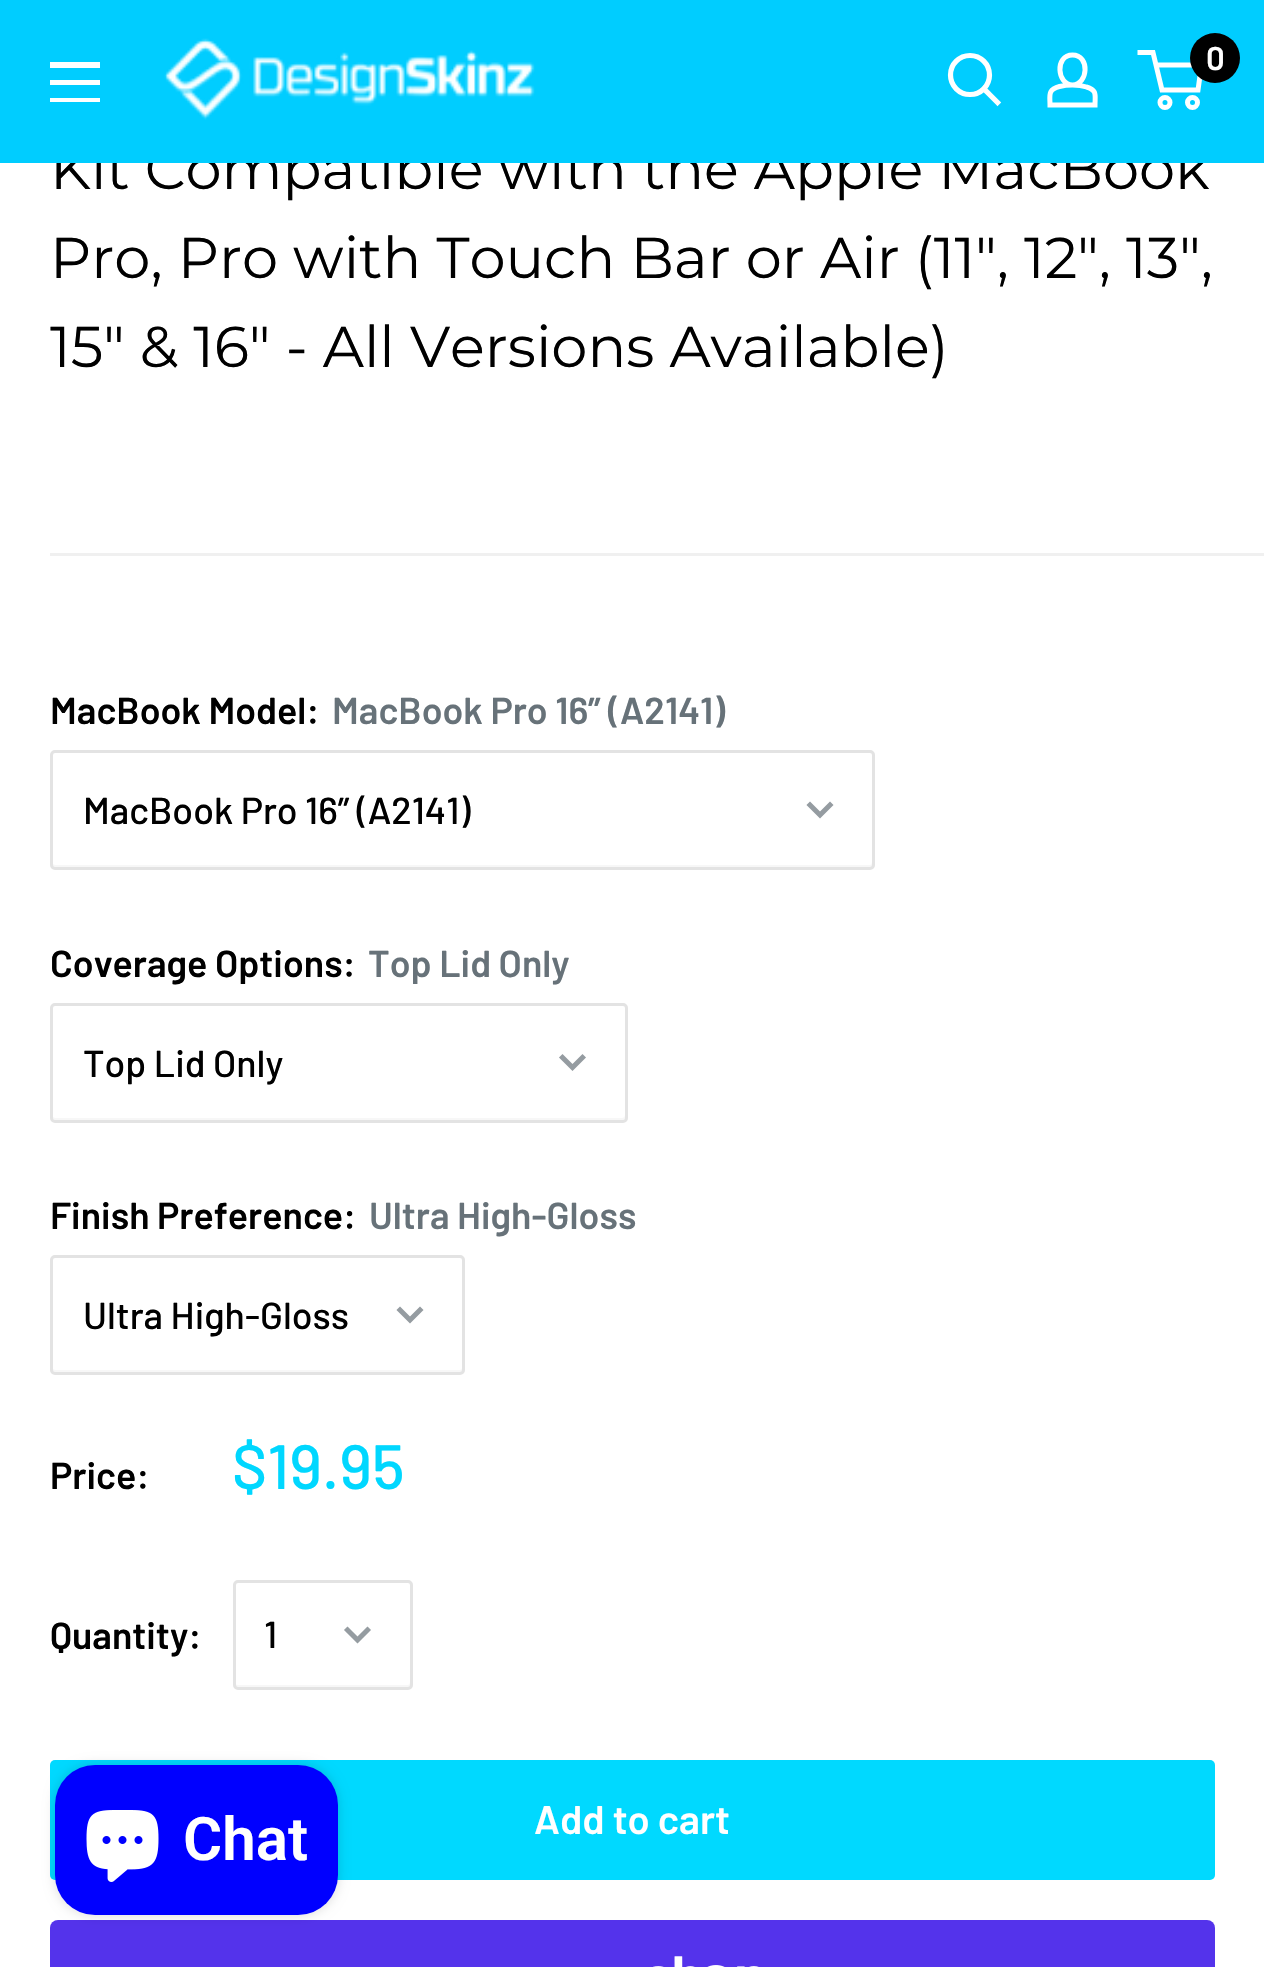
void draw(SkCanvas* canvas) {
    SkPaint paint;
    paint.setAntiAlias(true);
    canvas->clear(0xFFFFFFFF);
    SkFont font1(fontMgr->matchFamilyStyle("Montserrat", SkFontStyle::Normal()), 57.5f);
    font1.setSubpixel(true);
    paint.setColor(0xFF000000);
    canvas->drawString("Kit Compatible with the Apple MacBook", 50, 189, font1, paint);
    paint.setColor(0xFF00CDFF);
    canvas->drawRect(SkRect::MakeXYWH(0, 0, 1264, 163), paint);
    canvas->drawImageRect(SkImages::DeferredFromEncodedData(SkData::MakeFromFileName("img1.png")), SkRect::MakeXYWH(164, 38, 371, 82), SkSamplingOptions());
    paint.setStyle(SkPaint::kStroke_Style);
    paint.setStrokeWidth(5.2f);
    paint.setStrokeCap(SkPaint::kSquare_Cap);
    paint.setColor(0xFFFFFFFF);
    canvas->drawPath(SkPathBuilder().moveTo(997.5f, 102.5f).lineTo(984, 89).detach(), paint);
    paint.setStrokeCap(SkPaint::kButt_Cap);
    canvas->drawCircle(970, 75, 19.5f, paint);
    paint.setStrokeWidth(5);
    canvas->drawPath(SkPathBuilder().moveTo(1072.5f, 85).cubicTo(1077, 85, 1082, 85.5f, 1086.5f, 87).cubicTo(1097.5f, 90, 1095, 95.5f, 1095, 105).lineTo(1050, 105).cubicTo(1050, 95, 1047.5f, 89.5f, 1059.5f, 86.5f).cubicTo(1063.5f, 85.5f, 1068, 85, 1072.5f, 85).close().moveTo(1072.5f, 85).cubicTo(1057, 85, 1054.5f, 55, 1072.5f, 55).cubicTo(1090.5f, 55, 1088, 85, 1072.5f, 85).close().detach(), paint);
    canvas->drawCircle(1165, 102.5f, 5, paint);
    canvas->drawCircle(1192.5f, 102.5f, 5, paint);
    canvas->drawPath(SkPathBuilder().moveTo(1156, 65).lineTo(1201.5f, 65).lineTo(1198, 90).lineTo(1162, 90).lineTo(1153, 52.5f).lineTo(1137.5f, 52.5f).detach(), paint);
    paint.setStyle(SkPaint::kFill_Style);
    paint.setColor(0xFF000000);
    canvas->drawCircle(1215, 58, 25, paint);
    SkFont font2(fontMgr->matchFamilyStyle("Barlow", SkFontStyle(600, SkFontStyle::kNormal_Width, SkFontStyle::kUpright_Slant)), 33);
    font2.setSubpixel(true);
    paint.setColor(0xFFFFFFFF);
    canvas->drawString("0", 1206, 70, font2, paint);
    canvas->drawPath(SkPathBuilder(SkPathFillType::kEvenOdd).moveTo(50, 98).lineTo(100, 98).lineTo(100, 102).lineTo(50, 102).close().moveTo(50, 62).lineTo(100, 62).lineTo(100, 68).lineTo(50, 68).close().moveTo(50, 80).lineTo(100, 80).lineTo(100, 85).lineTo(50, 85).close().detach(), paint);
    paint.setColor(0xFF000000);
    canvas->drawString("Pro, Pro with Touch Bar or Air (11\", 12\", 13\",", 50, 278, font1, paint);
    canvas->drawString("15\" & 16\" - All Versions Available)", 50, 367, font1, paint);
    paint.setColor(0xFFF0F0F0);
    canvas->drawRect(SkRect::MakeXYWH(50, 553, 1214, 3), paint);
    SkFont font3(fontMgr->matchFamilyStyle("Barlow", SkFontStyle(600, SkFontStyle::kNormal_Width, SkFontStyle::kUpright_Slant)), 37.5f);
    font3.setSubpixel(true);
    paint.setColor(0xFF000000);
    canvas->drawString("MacBook Model:", 50, 724, font3, paint);
    paint.setColor(0xFF677279);
    canvas->drawString("MacBook Pro 16” (A2141)", 332, 724, font3, paint);
    paint.setColor(0xFFF7F7F7);
    canvas->drawPath(SkPathBuilder().moveTo(53, 864).lineTo(53, 867).lineTo(55, 868).lineTo(870, 868).cubicTo(876, 868, 873, 850, 873, 847).lineTo(873, 755).lineTo(872, 753).lineTo(872, 862).cubicTo(872, 864, 871, 865, 870, 865).lineTo(55, 865).close().detach(), paint);
    paint.setStyle(SkPaint::kStroke_Style);
    paint.setStrokeWidth(3);
    paint.setColor(0xFFE3E3E3);
    canvas->drawRoundRect(SkRect::MakeXYWH(51.5f, 751.5f, 822, 117), 3.5f, 3.5f, paint);
    SkFont font4(fontMgr->matchFamilyStyle("Barlow", SkFontStyle(500, SkFontStyle::kNormal_Width, SkFontStyle::kUpright_Slant)), 37.5f);
    font4.setSubpixel(true);
    paint.setStyle(SkPaint::kFill_Style);
    paint.setColor(0xFF000000);
    canvas->drawString("MacBook Pro 16” (A2141)", 83, 824, font4, paint);
    paint.setStyle(SkPaint::kStroke_Style);
    paint.setStrokeWidth(5);
    paint.setStrokeCap(SkPaint::kSquare_Cap);
    paint.setColor(0xFF959CA1);
    canvas->drawPath(SkPathBuilder().moveTo(830, 805).lineTo(820, 815).lineTo(810, 805).detach(), paint);
    paint.setStyle(SkPaint::kFill_Style);
    paint.setColor(0xFF000000);
    canvas->drawString("Coverage Options:", 50, 977, font3, paint);
    paint.setColor(0xFF677279);
    canvas->drawString("Top Lid Only", 368, 977, font3, paint);
    paint.setColor(0xFFF7F7F7);
    canvas->drawPath(SkPathBuilder().moveTo(53, 1117).lineTo(53, 1118).cubicTo(53, 1119, 54, 1120, 56, 1120).lineTo(622, 1120).cubicTo(624, 1120, 625, 1119, 625, 1118).lineTo(625, 1115).cubicTo(625, 1116, 624, 1118, 622, 1118).lineTo(55, 1118).close().detach(), paint);
    paint.setStyle(SkPaint::kStroke_Style);
    paint.setStrokeWidth(3);
    paint.setStrokeCap(SkPaint::kButt_Cap);
    paint.setColor(0xFFE3E3E3);
    canvas->drawRoundRect(SkRect::MakeXYWH(51.5f, 1004.5f, 575, 117), 3.5f, 3.5f, paint);
    paint.setStyle(SkPaint::kFill_Style);
    paint.setColor(0xFF000000);
    canvas->drawString("Top Lid Only", 83, 1077, font4, paint);
    paint.setStyle(SkPaint::kStroke_Style);
    paint.setStrokeWidth(5);
    paint.setStrokeCap(SkPaint::kSquare_Cap);
    paint.setColor(0xFF959CA1);
    canvas->drawPath(SkPathBuilder().moveTo(582.5f, 1057.5f).lineTo(572.5f, 1067.5f).lineTo(562.5f, 1057.5f).detach(), paint);
    paint.setStyle(SkPaint::kFill_Style);
    paint.setColor(0xFF000000);
    canvas->drawString("Finish Preference:", 50, 1229, font3, paint);
    paint.setColor(0xFF677279);
    canvas->drawString("Ultra High-Gloss", 369, 1229, font3, paint);
    paint.setColor(0xFFF7F7F7);
    canvas->drawPath(SkPathBuilder().moveTo(53, 1369).lineTo(53, 1370).cubicTo(53, 1372, 54, 1373, 56, 1373).lineTo(460, 1373).cubicTo(462, 1373, 463, 1372, 463, 1370).lineTo(463, 1260).cubicTo(463, 1260, 463, 1259, 462, 1258).lineTo(462, 1368).cubicTo(462, 1369, 461, 1370, 460, 1370).lineTo(55, 1370).close().detach(), paint);
    paint.setStyle(SkPaint::kStroke_Style);
    paint.setStrokeWidth(3);
    paint.setStrokeCap(SkPaint::kButt_Cap);
    paint.setColor(0xFFE3E3E3);
    canvas->drawRoundRect(SkRect::MakeXYWH(51.5f, 1256.5f, 412, 117), 3.5f, 3.5f, paint);
    paint.setStyle(SkPaint::kFill_Style);
    paint.setColor(0xFF000000);
    canvas->drawString("Ultra High-Gloss", 83, 1329, font4, paint);
    paint.setStyle(SkPaint::kStroke_Style);
    paint.setStrokeWidth(5);
    paint.setStrokeCap(SkPaint::kSquare_Cap);
    paint.setColor(0xFF959CA1);
    canvas->drawPath(SkPathBuilder().moveTo(420, 1310).lineTo(410, 1320).lineTo(400, 1310).detach(), paint);
    paint.setStyle(SkPaint::kFill_Style);
    paint.setColor(0xFF000000);
    canvas->drawString("Price:", 50, 1489, font3, paint);
    SkFont font5(fontMgr->matchFamilyStyle("Barlow", SkFontStyle(500, SkFontStyle::kNormal_Width, SkFontStyle::kUpright_Slant)), 62.5f);
    font5.setSubpixel(true);
    paint.setColor(0xFF00D7FF);
    canvas->drawString("$19.95", 232, 1489, font5, paint);
    paint.setColor(0xFF000000);
    canvas->drawString("Quantity:", 50, 1649, font3, paint);
    paint.setColor(0xFFF7F7F7);
    canvas->drawPath(SkPathBuilder().moveTo(235, 1682).lineTo(235, 1686).cubicTo(235, 1687, 236, 1688, 238, 1688).lineTo(408, 1688).cubicTo(409, 1688, 410, 1687, 410, 1686).lineTo(410, 1682).cubicTo(410, 1684, 409, 1685, 408, 1685).lineTo(238, 1685).cubicTo(236, 1685, 235, 1684, 235, 1682).close().detach(), paint);
    paint.setStyle(SkPaint::kStroke_Style);
    paint.setStrokeWidth(3);
    paint.setStrokeCap(SkPaint::kButt_Cap);
    paint.setColor(0xFFE3E3E3);
    canvas->drawRoundRect(SkRect::MakeXYWH(234.5f, 1581.5f, 177, 107), 3.5f, 3.5f, paint);
    paint.setStyle(SkPaint::kFill_Style);
    paint.setColor(0xFF000000);
    canvas->drawString("1", 264, 1648, font4, paint);
    paint.setStyle(SkPaint::kStroke_Style);
    paint.setStrokeWidth(5);
    paint.setStrokeCap(SkPaint::kSquare_Cap);
    paint.setColor(0xFF959CA1);
    canvas->drawPath(SkPathBuilder().moveTo(367.5f, 1630).lineTo(357.5f, 1640).lineTo(347.5f, 1630).detach(), paint);
    paint.setStyle(SkPaint::kFill_Style);
    paint.setColor(0xFF00D9FF);
    canvas->drawRoundRect(SkRect::MakeXYWH(50, 1760, 1165, 120), 5, 5, paint);
    SkFont font6(fontMgr->matchFamilyStyle("Barlow", SkFontStyle(600, SkFontStyle::kNormal_Width, SkFontStyle::kUpright_Slant)), 40);
    font6.setSubpixel(true);
    paint.setColor(0xFFFFFFFF);
    canvas->drawString("Add to cart", 534, 1834, font6, paint);
    paint.setColor(0xFF5433EB);
    canvas->drawRoundRect(SkRect::MakeXYWH(50, 1920, 1165, 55), 8, 8, paint);
    canvas->drawImageRect(SkImages::DeferredFromEncodedData(SkData::MakeFromFileName("img2.png")), SkRect::MakeXYWH(653, 1956, 106, 11), SkSamplingOptions());
    paint.setColor(0x26000000);
    paint.setMaskFilter(SkMaskFilter::MakeBlur(kNormal_SkBlurStyle, 6));
    canvas->drawRoundRect(SkRect::MakeXYWH(55, 1765, 283, 150), 40, 40, paint);
    paint.setMaskFilter(nullptr);
    paint.setColor(0xFF0000FF);
    canvas->drawRoundRect(SkRect::MakeXYWH(55, 1765, 283, 150), 40, 40, paint);
    canvas->drawImageRect(SkImages::DeferredFromEncodedData(SkData::MakeFromFileName("img3.png")), SkRect::MakeXYWH(86, 1810, 73, 72), SkSamplingOptions());
    SkFont font7(fontMgr->matchFamilyStyle("Roboto", SkFontStyle(600, SkFontStyle::kNormal_Width, SkFontStyle::kUpright_Slant)), 60);
    font7.setSubpixel(true);
    paint.setColor(0xFFFFFFFF);
    canvas->drawString("Chat", 183, 1860, font7, paint);
}
